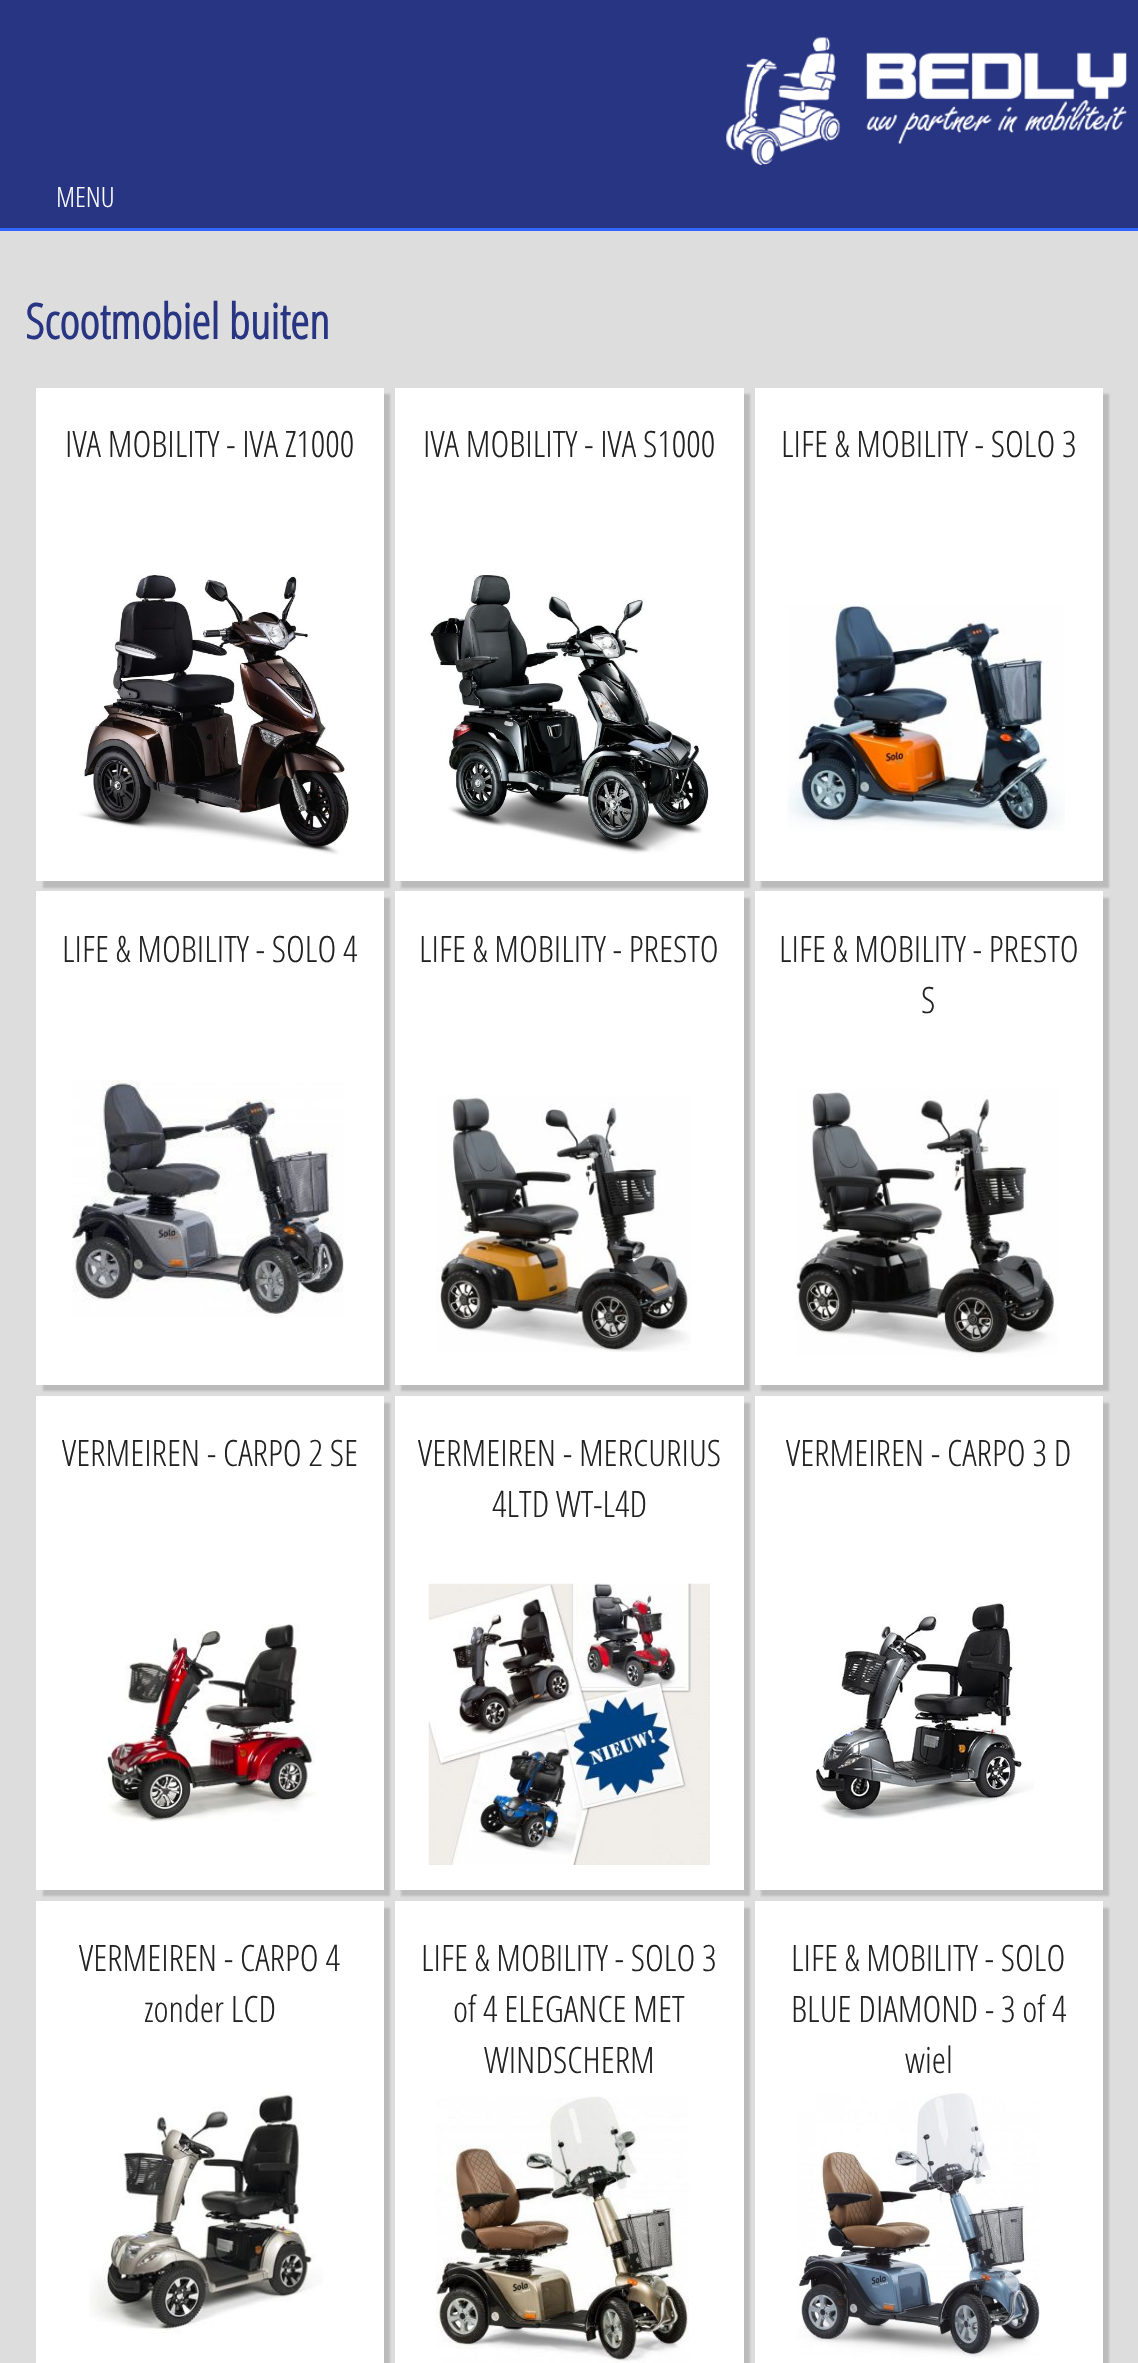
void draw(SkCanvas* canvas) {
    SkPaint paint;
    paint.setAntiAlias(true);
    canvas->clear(0xFFDDDDDD);
    paint.setColor(0xFF283583);
    canvas->drawRect(SkRect::MakeXYWH(0, 0, 1138, 228), paint);
    paint.setColor(0xFF3366FF);
    canvas->drawRect(SkRect::MakeXYWH(0, 228, 1138, 3), paint);
    canvas->drawImageRect(SkImages::DeferredFromEncodedData(SkData::MakeFromFileName("img1.png")), SkRect::MakeXYWH(726, 37, 401, 128), SkSamplingOptions());
    SkFont font1(fontMgr->matchFamilyStyle("Open Sans Condensed", SkFontStyle(300, SkFontStyle::kNormal_Width, SkFontStyle::kUpright_Slant)), 28);
    font1.setSubpixel(true);
    paint.setColor(0xFFFFFFFF);
    canvas->drawString("MENU", 56, 207, font1, paint);
    SkFont font2(fontMgr->matchFamilyStyle("Open Sans Condensed", SkFontStyle::Bold()), 48.5f);
    font2.setSubpixel(true);
    paint.setColor(0xFF283583);
    canvas->drawString("Scootmobiel buiten", 25, 339, font2, paint);
    paint.setColor(0xFFBBBBBB);
    paint.setMaskFilter(SkMaskFilter::MakeBlur(kNormal_SkBlurStyle, 1));
    canvas->drawRect(SkRect::MakeXYWH(43, 394, 347, 494), paint);
    paint.setMaskFilter(nullptr);
    paint.setColor(0xFFFFFFFF);
    canvas->drawRect(SkRect::MakeXYWH(36, 388, 348, 493), paint);
    SkFont font3(fontMgr->matchFamilyStyle("Open Sans Condensed", SkFontStyle(300, SkFontStyle::kNormal_Width, SkFontStyle::kUpright_Slant)), 36.25f);
    font3.setSubpixel(true);
    paint.setColor(0xFF222222);
    canvas->drawString("IVA MOBILITY - IVA Z1000", 65, 457, font3, paint);
    canvas->drawImageRect(SkImages::DeferredFromEncodedData(SkData::MakeFromFileName("img2.png")), SkRect::MakeXYWH(79, 575, 270, 280), SkSamplingOptions());
    paint.setColor(0xFFBBBBBB);
    paint.setMaskFilter(SkMaskFilter::MakeBlur(kNormal_SkBlurStyle, 1));
    canvas->drawRect(SkRect::MakeXYWH(401, 394, 349, 494), paint);
    paint.setMaskFilter(nullptr);
    paint.setColor(0xFFFFFFFF);
    canvas->drawRect(SkRect::MakeXYWH(395, 388, 349, 493), paint);
    paint.setColor(0xFF222222);
    canvas->drawString("IVA MOBILITY - IVA S1000", 423, 457, font3, paint);
    canvas->drawImageRect(SkImages::DeferredFromEncodedData(SkData::MakeFromFileName("img3.png")), SkRect::MakeXYWH(429, 575, 280, 279), SkSamplingOptions());
    paint.setColor(0xFFBBBBBB);
    paint.setMaskFilter(SkMaskFilter::MakeBlur(kNormal_SkBlurStyle, 1));
    canvas->drawRect(SkRect::MakeXYWH(761, 394, 348, 494), paint);
    paint.setMaskFilter(nullptr);
    paint.setColor(0xFFFFFFFF);
    canvas->drawRect(SkRect::MakeXYWH(755, 388, 348, 493), paint);
    paint.setColor(0xFF222222);
    canvas->drawString("LIFE & MOBILITY - SOLO 3", 781, 457, font3, paint);
    canvas->drawImageRect(SkImages::DeferredFromEncodedData(SkData::MakeFromFileName("img4.png")), SkRect::MakeXYWH(787, 604, 278, 227), SkSamplingOptions());
    paint.setColor(0xFFBBBBBB);
    paint.setMaskFilter(SkMaskFilter::MakeBlur(kNormal_SkBlurStyle, 1));
    canvas->drawRect(SkRect::MakeXYWH(43, 898, 347, 493), paint);
    paint.setMaskFilter(nullptr);
    paint.setColor(0xFFFFFFFF);
    canvas->drawRect(SkRect::MakeXYWH(36, 891, 348, 494), paint);
    paint.setColor(0xFF222222);
    canvas->drawString("LIFE & MOBILITY - SOLO 4", 62, 962, font3, paint);
    canvas->drawImageRect(SkImages::DeferredFromEncodedData(SkData::MakeFromFileName("img5.png")), SkRect::MakeXYWH(72, 1080, 272, 238), SkSamplingOptions());
    paint.setColor(0xFFBBBBBB);
    paint.setMaskFilter(SkMaskFilter::MakeBlur(kNormal_SkBlurStyle, 1));
    canvas->drawRect(SkRect::MakeXYWH(401, 898, 349, 493), paint);
    paint.setMaskFilter(nullptr);
    paint.setColor(0xFFFFFFFF);
    canvas->drawRect(SkRect::MakeXYWH(395, 891, 349, 494), paint);
    paint.setColor(0xFF222222);
    canvas->drawString("LIFE & MOBILITY - PRESTO", 419, 962, font3, paint);
    canvas->drawImageRect(SkImages::DeferredFromEncodedData(SkData::MakeFromFileName("img6.png")), SkRect::MakeXYWH(436, 1095, 255, 257), SkSamplingOptions());
    paint.setColor(0xFFBBBBBB);
    paint.setMaskFilter(SkMaskFilter::MakeBlur(kNormal_SkBlurStyle, 1));
    canvas->drawRect(SkRect::MakeXYWH(761, 898, 348, 493), paint);
    paint.setMaskFilter(nullptr);
    paint.setColor(0xFFFFFFFF);
    canvas->drawRect(SkRect::MakeXYWH(755, 891, 348, 494), paint);
    paint.setColor(0xFF222222);
    canvas->drawString("LIFE & MOBILITY - PRESTO", 779, 962, font3, paint);
    canvas->drawString("S", 921, 1013, font3, paint);
    canvas->drawImageRect(SkImages::DeferredFromEncodedData(SkData::MakeFromFileName("img7.png")), SkRect::MakeXYWH(795, 1089, 263, 268), SkSamplingOptions());
    paint.setColor(0xFFBBBBBB);
    paint.setMaskFilter(SkMaskFilter::MakeBlur(kNormal_SkBlurStyle, 1));
    canvas->drawRect(SkRect::MakeXYWH(43, 1403, 347, 493), paint);
    paint.setMaskFilter(nullptr);
    paint.setColor(0xFFFFFFFF);
    canvas->drawRect(SkRect::MakeXYWH(36, 1396, 348, 494), paint);
    paint.setColor(0xFF222222);
    canvas->drawString("VERMEIREN - CARPO 2 SE", 62, 1466, font3, paint);
    canvas->drawImageRect(SkImages::DeferredFromEncodedData(SkData::MakeFromFileName("img8.png")), SkRect::MakeXYWH(102, 1623, 215, 199), SkSamplingOptions());
    paint.setColor(0xFFBBBBBB);
    paint.setMaskFilter(SkMaskFilter::MakeBlur(kNormal_SkBlurStyle, 1));
    canvas->drawRect(SkRect::MakeXYWH(401, 1403, 349, 493), paint);
    paint.setMaskFilter(nullptr);
    paint.setColor(0xFFFFFFFF);
    canvas->drawRect(SkRect::MakeXYWH(395, 1396, 349, 494), paint);
    paint.setColor(0xFF222222);
    canvas->drawString("VERMEIREN - MERCURIUS", 418, 1466, font3, paint);
    canvas->drawString("4LTD WT-L4D", 492, 1517, font3, paint);
    canvas->drawImageRect(SkImages::DeferredFromEncodedData(SkData::MakeFromFileName("img9.png")), SkRect::MakeXYWH(428, 1583, 282, 282), SkSamplingOptions());
    paint.setColor(0xFFBBBBBB);
    paint.setMaskFilter(SkMaskFilter::MakeBlur(kNormal_SkBlurStyle, 1));
    canvas->drawRect(SkRect::MakeXYWH(761, 1403, 348, 493), paint);
    paint.setMaskFilter(nullptr);
    paint.setColor(0xFFFFFFFF);
    canvas->drawRect(SkRect::MakeXYWH(755, 1396, 348, 494), paint);
    paint.setColor(0xFF222222);
    canvas->drawString("VERMEIREN - CARPO 3 D", 786, 1466, font3, paint);
    canvas->drawImageRect(SkImages::DeferredFromEncodedData(SkData::MakeFromFileName("img10.png")), SkRect::MakeXYWH(815, 1602, 219, 218), SkSamplingOptions());
    paint.setColor(0xFFBBBBBB);
    paint.setMaskFilter(SkMaskFilter::MakeBlur(kNormal_SkBlurStyle, 1));
    canvas->drawRect(SkRect::MakeXYWH(43, 1908, 347, 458), paint);
    paint.setMaskFilter(nullptr);
    paint.setColor(0xFFFFFFFF);
    canvas->drawRect(SkRect::MakeXYWH(36, 1901, 348, 462), paint);
    paint.setColor(0xFF222222);
    canvas->drawString("VERMEIREN - CARPO 4", 79, 1971, font3, paint);
    canvas->drawString("zonder LCD", 144, 2022, font3, paint);
    canvas->drawImageRect(SkImages::DeferredFromEncodedData(SkData::MakeFromFileName("img11.png")), SkRect::MakeXYWH(89, 2091, 234, 243), SkSamplingOptions());
    paint.setColor(0xFFBBBBBB);
    paint.setMaskFilter(SkMaskFilter::MakeBlur(kNormal_SkBlurStyle, 1));
    canvas->drawRect(SkRect::MakeXYWH(401, 1908, 349, 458), paint);
    paint.setMaskFilter(nullptr);
    paint.setColor(0xFFFFFFFF);
    canvas->drawRect(SkRect::MakeXYWH(395, 1901, 349, 462), paint);
    paint.setColor(0xFF222222);
    canvas->drawString("LIFE & MOBILITY - SOLO 3", 421, 1971, font3, paint);
    canvas->drawString("of 4 ELEGANCE MET", 453, 2022, font3, paint);
    canvas->drawString("WINDSCHERM", 484, 2073, font3, paint);
    canvas->drawImageRect(SkImages::DeferredFromEncodedData(SkData::MakeFromFileName("img12.png")), SkRect::MakeXYWH(435, 2096, 254, 267), SkSamplingOptions());
    paint.setColor(0xFFBBBBBB);
    paint.setMaskFilter(SkMaskFilter::MakeBlur(kNormal_SkBlurStyle, 1));
    canvas->drawRect(SkRect::MakeXYWH(761, 1908, 348, 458), paint);
    paint.setMaskFilter(nullptr);
    paint.setColor(0xFFFFFFFF);
    canvas->drawRect(SkRect::MakeXYWH(755, 1901, 348, 462), paint);
    paint.setColor(0xFF222222);
    canvas->drawString("LIFE & MOBILITY - SOLO", 791, 1971, font3, paint);
    canvas->drawString("BLUE DIAMOND - 3 of 4", 791, 2022, font3, paint);
    canvas->drawString("wiel", 905, 2073, font3, paint);
    canvas->drawImageRect(SkImages::DeferredFromEncodedData(SkData::MakeFromFileName("img13.png")), SkRect::MakeXYWH(797, 2093, 243, 266), SkSamplingOptions());
}
